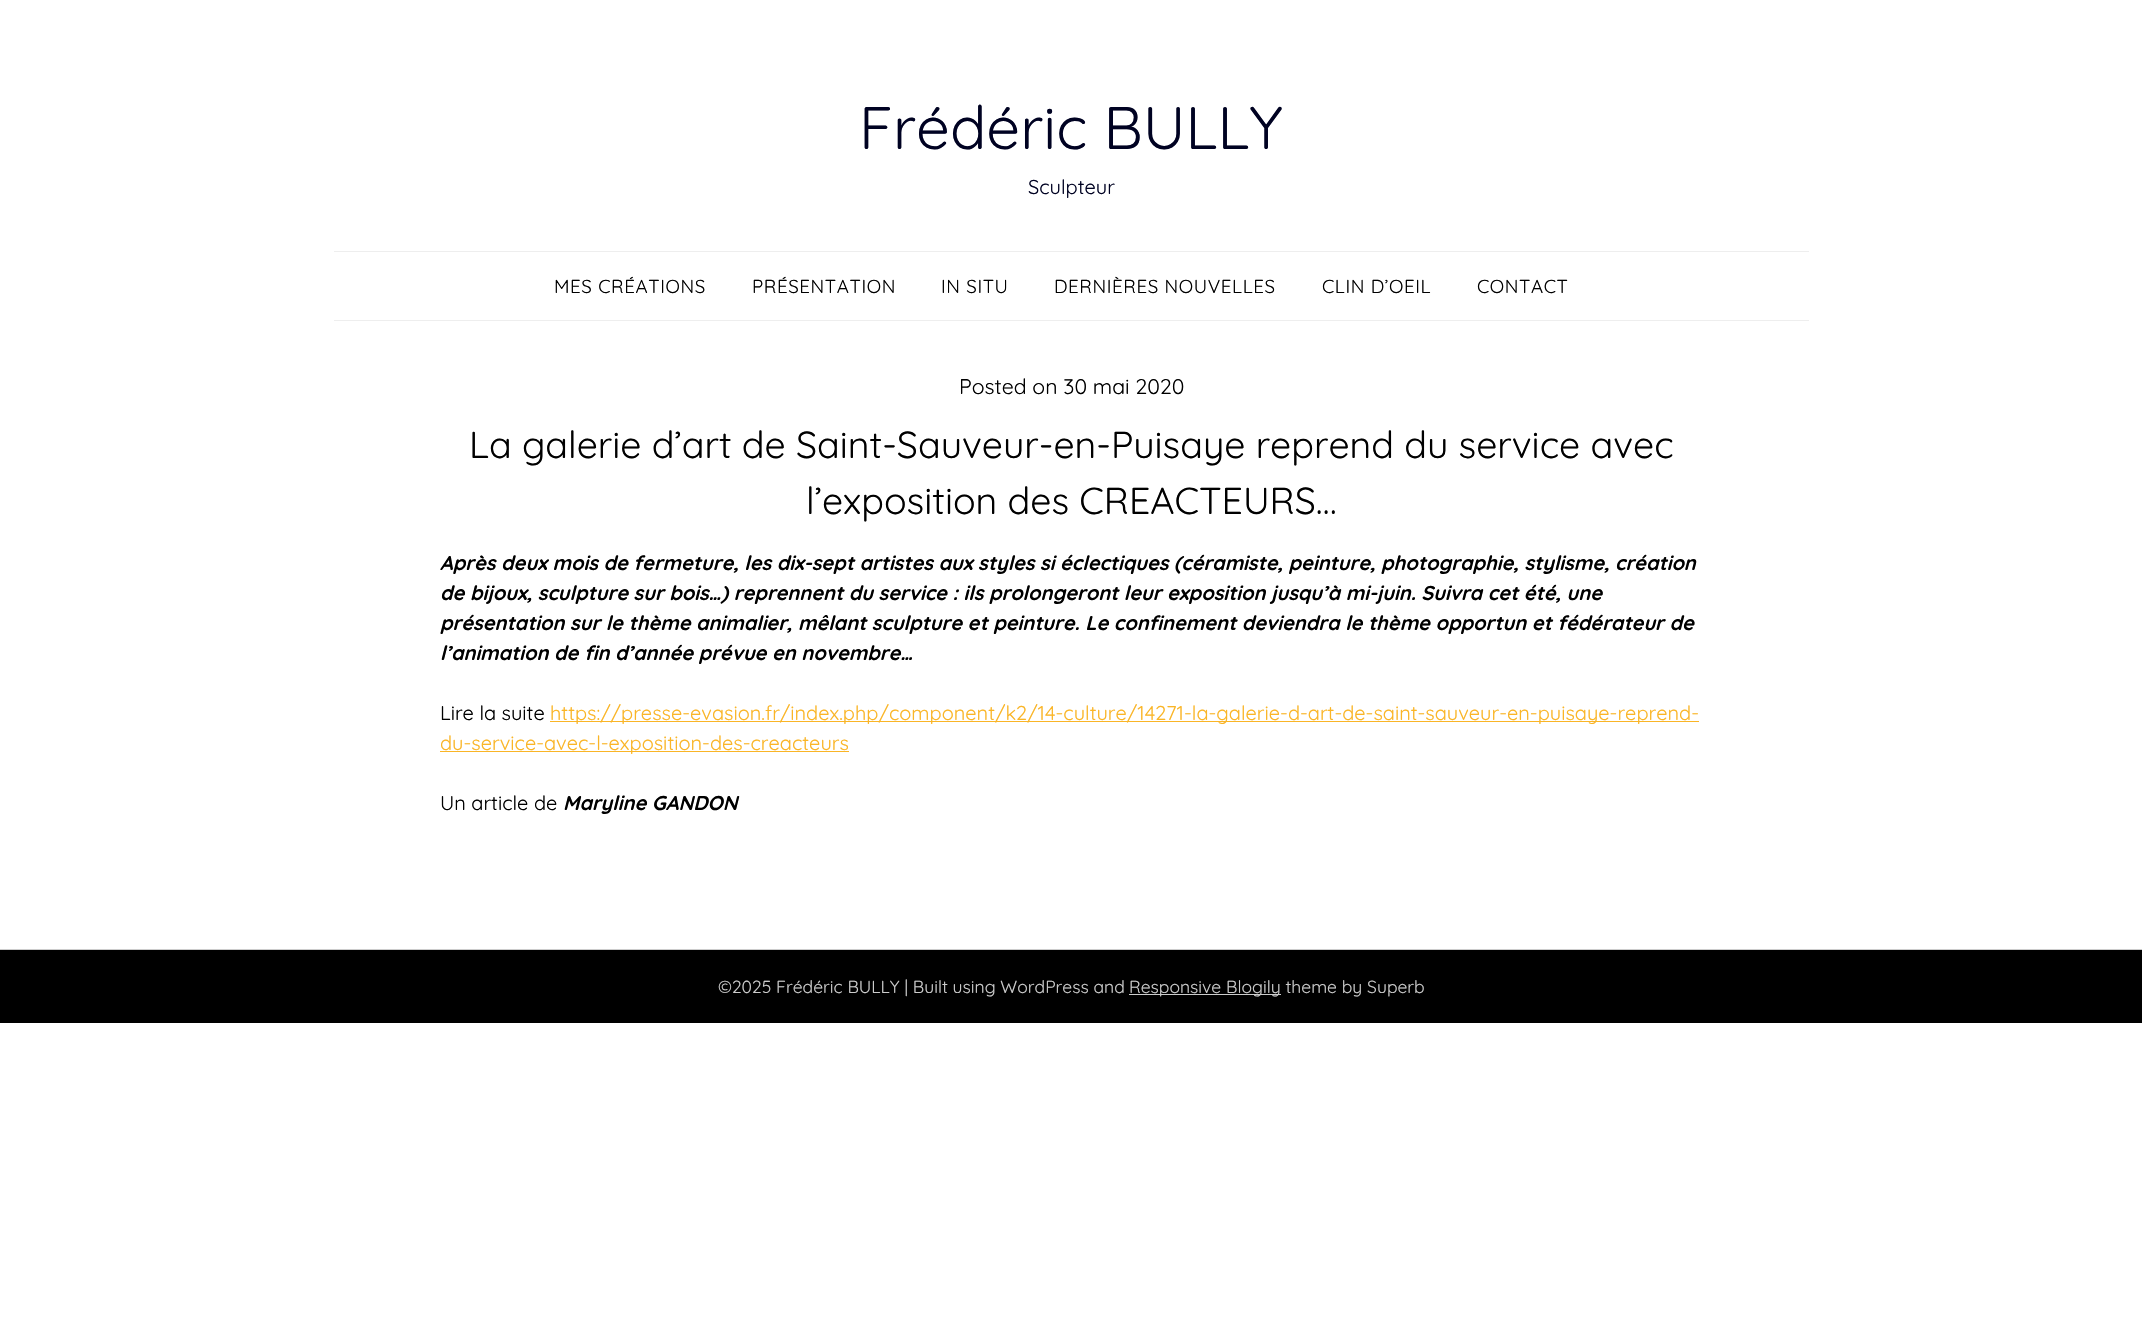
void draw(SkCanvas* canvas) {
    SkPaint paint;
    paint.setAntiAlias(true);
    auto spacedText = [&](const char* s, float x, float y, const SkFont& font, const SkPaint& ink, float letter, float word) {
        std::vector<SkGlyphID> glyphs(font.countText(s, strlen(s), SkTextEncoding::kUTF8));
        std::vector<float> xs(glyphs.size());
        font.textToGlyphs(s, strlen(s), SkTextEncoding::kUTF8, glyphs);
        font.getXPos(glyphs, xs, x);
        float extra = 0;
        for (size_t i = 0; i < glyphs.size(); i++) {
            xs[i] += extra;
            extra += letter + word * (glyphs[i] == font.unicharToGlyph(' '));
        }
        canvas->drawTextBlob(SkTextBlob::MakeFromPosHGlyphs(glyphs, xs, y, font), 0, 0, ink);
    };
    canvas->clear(0xFFFFFFFF);
    SkFont font1(fontMgr->matchFamilyStyle("Quicksand", SkFontStyle::Normal()), 60);
    font1.setSubpixel(true);
    paint.setColor(0xFF000222);
    canvas->drawString("Frédéric BULLY", 859, 149, font1, paint);
    SkFont font2(fontMgr->matchFamilyStyle("Quicksand", SkFontStyle::Normal()), 20);
    font2.setSubpixel(true);
    canvas->drawString("Sculpteur", 1028, 194, font2, paint);
    paint.setColor(0xFFEEEEEE);
    canvas->drawRect(SkRect::MakeXYWH(334, 251, 1475, 1), paint);
    canvas->drawRect(SkRect::MakeXYWH(334, 320, 1475, 1), paint);
    SkFont font3(fontMgr->matchFamilyStyle("Quicksand", SkFontStyle::Normal()), 18.75f);
    font3.setSubpixel(true);
    paint.setColor(0xFF000000);
    spacedText("MES CRÉATIONS", 554, 293, font3, paint, 0.6f, 0);
    spacedText("PRÉSENTATION", 752, 293, font3, paint, 0.6f, 0);
    spacedText("IN SITU", 941, 293, font3, paint, 0.6f, 0);
    spacedText("DERNIÈRES NOUVELLES", 1054, 293, font3, paint, 0.6f, 0);
    spacedText("CLIN D’OEIL", 1322, 293, font3, paint, 0.6f, 0);
    spacedText("CONTACT", 1477, 293, font3, paint, 0.6f, 0);
    SkFont font4(fontMgr->matchFamilyStyle("Quicksand", SkFontStyle::Normal()), 21.25f);
    font4.setSubpixel(true);
    canvas->drawString("Posted on 30 mai 2020", 959, 394, font4, paint);
    SkFont font5(fontMgr->matchFamilyStyle("Quicksand", SkFontStyle::Normal()), 37.5f);
    font5.setSubpixel(true);
    canvas->drawString("La galerie d’art de Saint-Sauveur-en-Puisaye reprend du service avec", 469, 458, font5, paint);
    canvas->drawString("l’exposition des CREACTEURS…", 806, 514, font5, paint);
    SkFont font6(fontMgr->matchFamilyStyle("Quicksand", SkFontStyle::BoldItalic()), 20);
    font6.setSubpixel(true);
    canvas->drawString("Après deux mois de fermeture, les dix-sept artistes aux styles si éclectiques (céramiste, peinture, photographie, stylisme, création", 440, 570, font6, paint);
    canvas->drawString("de bijoux, sculpture sur bois…) reprennent du service : ils prolongeront leur exposition jusqu’à mi-juin. Suivra cet été, une", 440, 600, font6, paint);
    canvas->drawString("présentation sur le thème animalier, mêlant sculpture et peinture. Le confinement deviendra le thème opportun et fédérateur de", 440, 630, font6, paint);
    canvas->drawString("l’animation de fin d’année prévue en novembre…", 440, 660, font6, paint);
    canvas->drawString("Lire la suite", 440, 720, font2, paint);
    paint.setColor(0xFFFAB526);
    canvas->drawRect(SkRect::MakeXYWH(550, 721, 1149, 1), paint);
    canvas->drawString("https://presse-evasion.fr/index.php/component/k2/14-culture/14271-la-galerie-d-art-de-saint-sauveur-en-puisaye-reprend-", 550, 720, font2, paint);
    canvas->drawRect(SkRect::MakeXYWH(440, 751, 409, 1), paint);
    canvas->drawString("du-service-avec-l-exposition-des-creacteurs", 440, 750, font2, paint);
    paint.setColor(0xFF000000);
    canvas->drawString("Un article de", 440, 810, font2, paint);
    canvas->drawString("Maryline GANDON", 563, 810, font6, paint);
    canvas->drawRect(SkRect::MakeXYWH(0, 950, 2142, 73), paint);
    paint.setColor(0xFFCCCCCC);
    canvas->drawRect(SkRect::MakeXYWH(0, 949, 2142, 1), paint);
    SkFont font7(fontMgr->matchFamilyStyle("Quicksand", SkFontStyle::Normal()), 17.5f);
    font7.setSubpixel(true);
    canvas->drawString("©2025 Frédéric BULLY | Built using WordPress and", 718, 993, font7, paint);
    canvas->drawRect(SkRect::MakeXYWH(1129, 994, 152, 1), paint);
    canvas->drawString("Responsive Blogily theme by Superb", 1129, 993, font7, paint);
}
